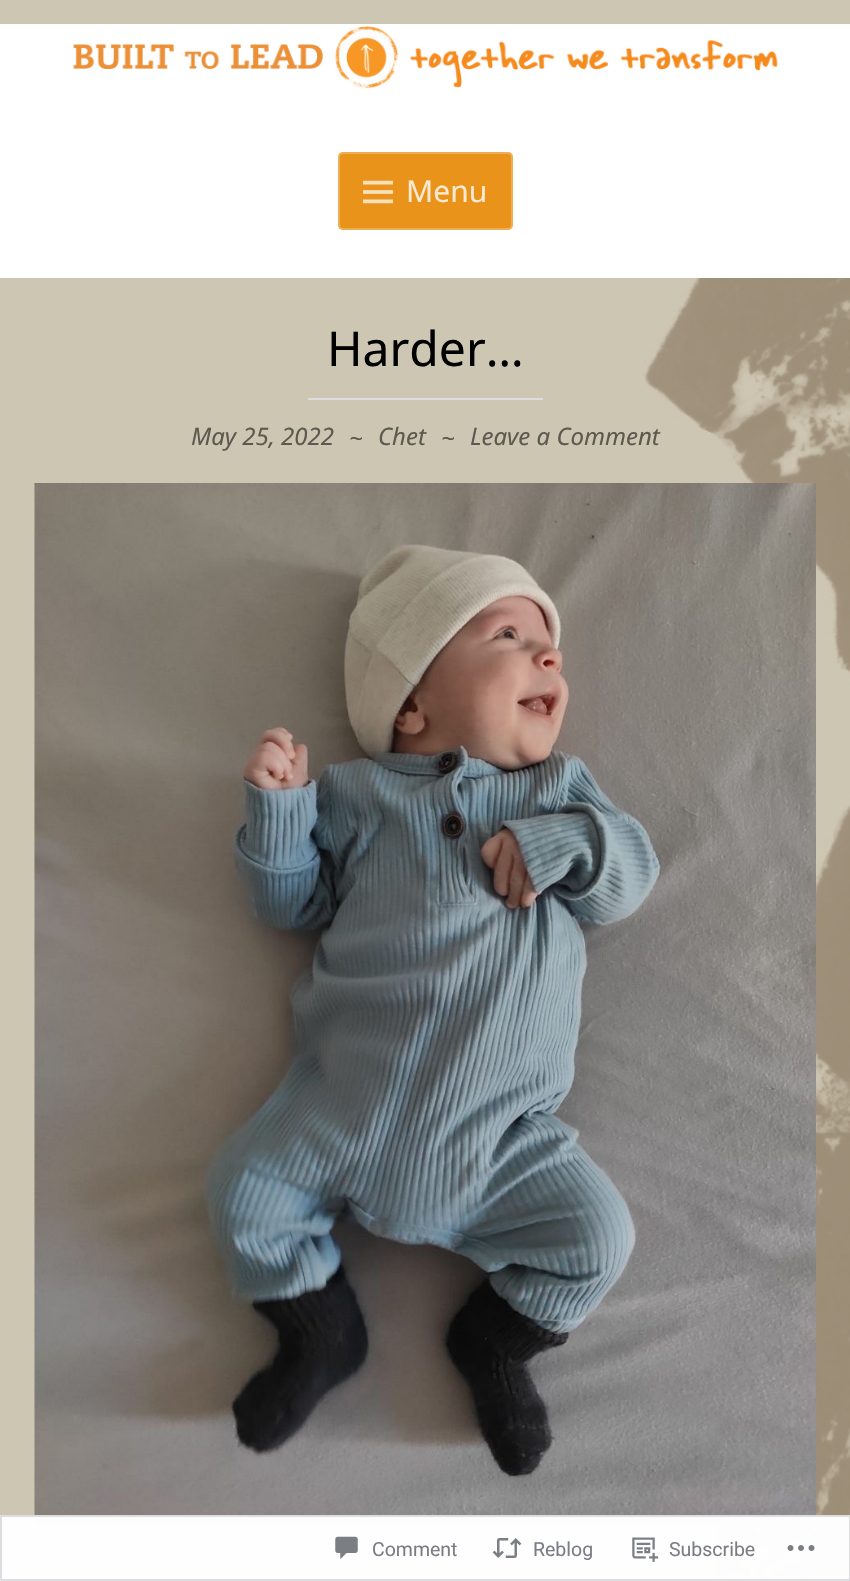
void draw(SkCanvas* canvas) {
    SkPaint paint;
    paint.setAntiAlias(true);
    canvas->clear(0xFFFFFFFF);
    canvas->drawImageRect(SkImages::DeferredFromEncodedData(SkData::MakeFromFileName("img1.png")), SkRect::MakeXYWH(0, 0, 850, 1581), SkSamplingOptions());
    paint.setColor(0xFFFFFFFF);
    canvas->drawRect(SkRect::MakeXYWH(0, 24, 850, 254), paint);
    canvas->drawImageRect(SkImages::DeferredFromEncodedData(SkData::MakeFromFileName("img2.png")), SkRect::MakeXYWH(73, 25, 705, 64), SkSamplingOptions());
    paint.setColor(0xFFE9931A);
    canvas->drawRoundRect(SkRect::MakeXYWH(338, 152, 175, 78), 5, 5, paint);
    paint.setStyle(SkPaint::kStroke_Style);
    paint.setStrokeWidth(2);
    paint.setColor(0x40FFFFFF);
    canvas->drawRoundRect(SkRect::MakeXYWH(339, 153, 173, 76), 4, 4, paint);
    canvas->drawImageRect(SkImages::DeferredFromEncodedData(SkData::MakeFromFileName("img3.png")), SkRect::MakeXYWH(363, 180, 30, 24), SkSamplingOptions());
    SkFont font1(fontMgr->matchFamilyStyle("Noto Sans", SkFontStyle::Normal()), 30);
    font1.setSubpixel(true);
    paint.setStyle(SkPaint::kFill_Style);
    paint.setColor(0xFFFBE9D1);
    canvas->drawString("Menu", 406, 202, font1, paint);
    SkFont font2(fontMgr->matchFamilyStyle("Noto Sans", SkFontStyle::Normal()), 48);
    font2.setSubpixel(true);
    paint.setColor(0xFF000000);
    canvas->drawString("Harder…", 327, 366, font2, paint);
    paint.setColor(0xFFDDDDDD);
    canvas->drawRect(SkRect::MakeXYWH(308, 398, 235, 2), paint);
    SkFont font3(fontMgr->matchFamilyStyle("Noto Sans", SkFontStyle::Italic()), 24);
    font3.setSubpixel(true);
    paint.setColor(0xFF5C5950);
    canvas->drawString("May 25, 2022", 191, 445, font3, paint);
    canvas->drawString("~", 349, 447, font3, paint);
    canvas->drawString("Chet", 378, 445, font3, paint);
    canvas->drawString("~", 441, 447, font3, paint);
    canvas->drawString("Leave a Comment", 470, 445, font3, paint);
    canvas->drawImageRect(SkImages::DeferredFromEncodedData(SkData::MakeFromFileName("img4.png")), SkRect::MakeXYWH(34, 483, 782, 1043), SkSamplingOptions());
    paint.setColor(0xFAFFFFFF);
    canvas->drawRect(SkRect::MakeXYWH(0, 1515, 850, 66), paint);
    paint.setStyle(SkPaint::kStroke_Style);
    paint.setColor(0xFADCDCDE);
    canvas->drawRect(SkRect::MakeXYWH(1, 1516, 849, 64), paint);
    canvas->drawImageRect(SkImages::DeferredFromEncodedData(SkData::MakeFromFileName("img5.png")), SkRect::MakeXYWH(335, 1536, 23, 24), SkSamplingOptions());
    SkFont font4(fontMgr->matchFamilyStyle("Roboto", SkFontStyle::Normal()), 19.5f);
    font4.setSubpixel(true);
    paint.setStyle(SkPaint::kFill_Style);
    paint.setColor(0xFF7A7D83);
    canvas->drawString("Comment", 372, 1556, font4, paint);
    canvas->drawImageRect(SkImages::DeferredFromEncodedData(SkData::MakeFromFileName("img6.png")), SkRect::MakeXYWH(492, 1538, 30, 20), SkSamplingOptions());
    canvas->drawString("Reblog", 533, 1556, font4, paint);
    canvas->drawImageRect(SkImages::DeferredFromEncodedData(SkData::MakeFromFileName("img7.png")), SkRect::MakeXYWH(632, 1537, 27, 25), SkSamplingOptions());
    canvas->drawString("Subscribe", 669, 1556, font4, paint);
    canvas->drawImageRect(SkImages::DeferredFromEncodedData(SkData::MakeFromFileName("img8.png")), SkRect::MakeXYWH(787, 1545, 28, 6), SkSamplingOptions());
}
